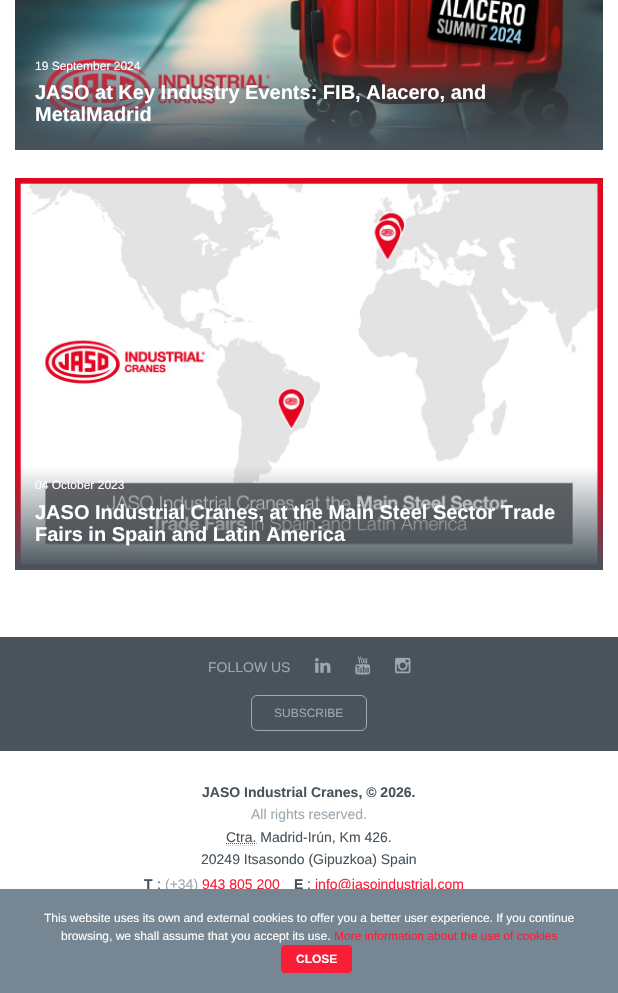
void draw(SkCanvas* canvas) {
    SkPaint paint;
    paint.setAntiAlias(true);
    canvas->clear(0xFFFFFFFF);
    canvas->drawImageRect(SkImages::DeferredFromEncodedData(SkData::MakeFromFileName("img1.png")), SkRect::MakeXYWH(15, 0, 588, 150), SkSamplingOptions());
    SkFont font1(fontMgr->matchFamilyStyle("Liberation Sans", SkFontStyle::Normal()), 12);
    font1.setSubpixel(true);
    paint.setColor(0xFFFFFFFF);
    canvas->drawString("19 September 2024", 35, 70, font1, paint);
    SkFont font2(fontMgr->matchFamilyStyle("Liberation Sans", SkFontStyle::Bold()), 20);
    font2.setSubpixel(true);
    canvas->drawString("JASO at Key Industry Events: FIB, Alacero, and", 35, 99, font2, paint);
    canvas->drawString("MetalMadrid", 35, 121, font2, paint);
    canvas->drawImageRect(SkImages::DeferredFromEncodedData(SkData::MakeFromFileName("img2.png")), SkRect::MakeXYWH(15, 178, 588, 392), SkSamplingOptions());
    canvas->drawString("04 October 2023", 35, 489, font1, paint);
    canvas->drawString("JASO Industrial Cranes, at the Main Steel Sector Trade", 35, 519, font2, paint);
    canvas->drawString("Fairs in Spain and Latin America", 35, 541, font2, paint);
    paint.setColor(0xFF48535B);
    canvas->drawRect(SkRect::MakeXYWH(0, 637, 618, 114), paint);
    SkFont font3(fontMgr->matchFamilyStyle("Liberation Sans", SkFontStyle::Normal()), 14);
    font3.setSubpixel(true);
    paint.setColor(0xFF9DA9B1);
    canvas->drawString("FOLLOW US", 208, 672, font3, paint);
    canvas->drawImageRect(SkImages::DeferredFromEncodedData(SkData::MakeFromFileName("img3.png")), SkRect::MakeXYWH(315, 658, 16, 15), SkSamplingOptions());
    canvas->drawImageRect(SkImages::DeferredFromEncodedData(SkData::MakeFromFileName("img4.png")), SkRect::MakeXYWH(355, 656, 16, 19), SkSamplingOptions());
    canvas->drawImageRect(SkImages::DeferredFromEncodedData(SkData::MakeFromFileName("img5.png")), SkRect::MakeXYWH(395, 657, 16, 17), SkSamplingOptions());
    paint.setStyle(SkPaint::kStroke_Style);
    paint.setStrokeWidth(1);
    canvas->drawRoundRect(SkRect::MakeXYWH(251.5f, 695.5f, 115, 35), 5.5f, 5.5f, paint);
    paint.setStyle(SkPaint::kFill_Style);
    canvas->drawString("SUBSCRIBE", 274, 717, font1, paint);
    SkFont font4(fontMgr->matchFamilyStyle("Liberation Sans", SkFontStyle::Bold()), 14);
    font4.setSubpixel(true);
    paint.setColor(0xFF48535B);
    canvas->drawString("JASO Industrial Cranes, © 2026.", 202, 797, font4, paint);
    paint.setColor(0xFF9DA9B1);
    canvas->drawString("All rights reserved.", 251, 819, font3, paint);
    paint.setStyle(SkPaint::kStroke_Style);
    paint.setColor(0xFF48535B);
    paint.setPathEffect(SkDashPathEffect::Make({{1, 1}}, 0));
    canvas->drawPath(SkPathBuilder().moveTo(226, 843.5f).lineTo(256.5f, 843.5f).detach(), paint);
    paint.setPathEffect(nullptr);
    paint.setStyle(SkPaint::kFill_Style);
    canvas->drawString("Ctra. Madrid-Irún, Km 426.", 226, 842, font3, paint);
    paint.setStyle(SkPaint::kStroke_Style);
    paint.setColor(0xFFC2CACF);
    paint.setPathEffect(SkDashPathEffect::Make({{1, 1}}, 0));
    canvas->drawPath(SkPathBuilder().moveTo(226, 845.5f).lineTo(256, 845.5f).detach(), paint);
    paint.setPathEffect(nullptr);
    paint.setStyle(SkPaint::kFill_Style);
    paint.setColor(0xFF48535B);
    canvas->drawString("20249 Itsasondo (Gipuzkoa) Spain", 201, 864, font3, paint);
    canvas->drawString("T", 144, 889, font4, paint);
    canvas->drawString(":", 157, 889, font3, paint);
    paint.setColor(0xFF9DA9B1);
    canvas->drawString("(+34)", 165, 889, font3, paint);
    paint.setColor(0xFFF91E37);
    canvas->drawString("943 805 200", 202, 889, font3, paint);
    paint.setColor(0xFF48535B);
    canvas->drawString("E", 294, 889, font4, paint);
    canvas->drawString(":", 307, 889, font3, paint);
    paint.setColor(0xFFF91E37);
    canvas->drawString("info@jasoindustrial.com", 315, 889, font3, paint);
    paint.setColor(0xFF768793);
    canvas->drawRect(SkRect::MakeXYWH(0, 889, 618, 104), paint);
    paint.setColor(0xFFFFFFFF);
    canvas->drawString("This website uses its own and external cookies to offer you a better user experience. If you continue", 44, 922, font1, paint);
    canvas->drawString("browsing, we shall assume that you accept its use.", 61, 940, font1, paint);
    paint.setColor(0xFFF91E37);
    canvas->drawString("More information about the use of cookies", 334, 940, font1, paint);
    canvas->drawRoundRect(SkRect::MakeXYWH(281, 945, 71, 28), 4, 4, paint);
    SkFont font5(fontMgr->matchFamilyStyle("Liberation Sans", SkFontStyle::Bold()), 12);
    font5.setSubpixel(true);
    paint.setColor(0xFFFFFFFF);
    canvas->drawString("CLOSE", 296, 963, font5, paint);
}
